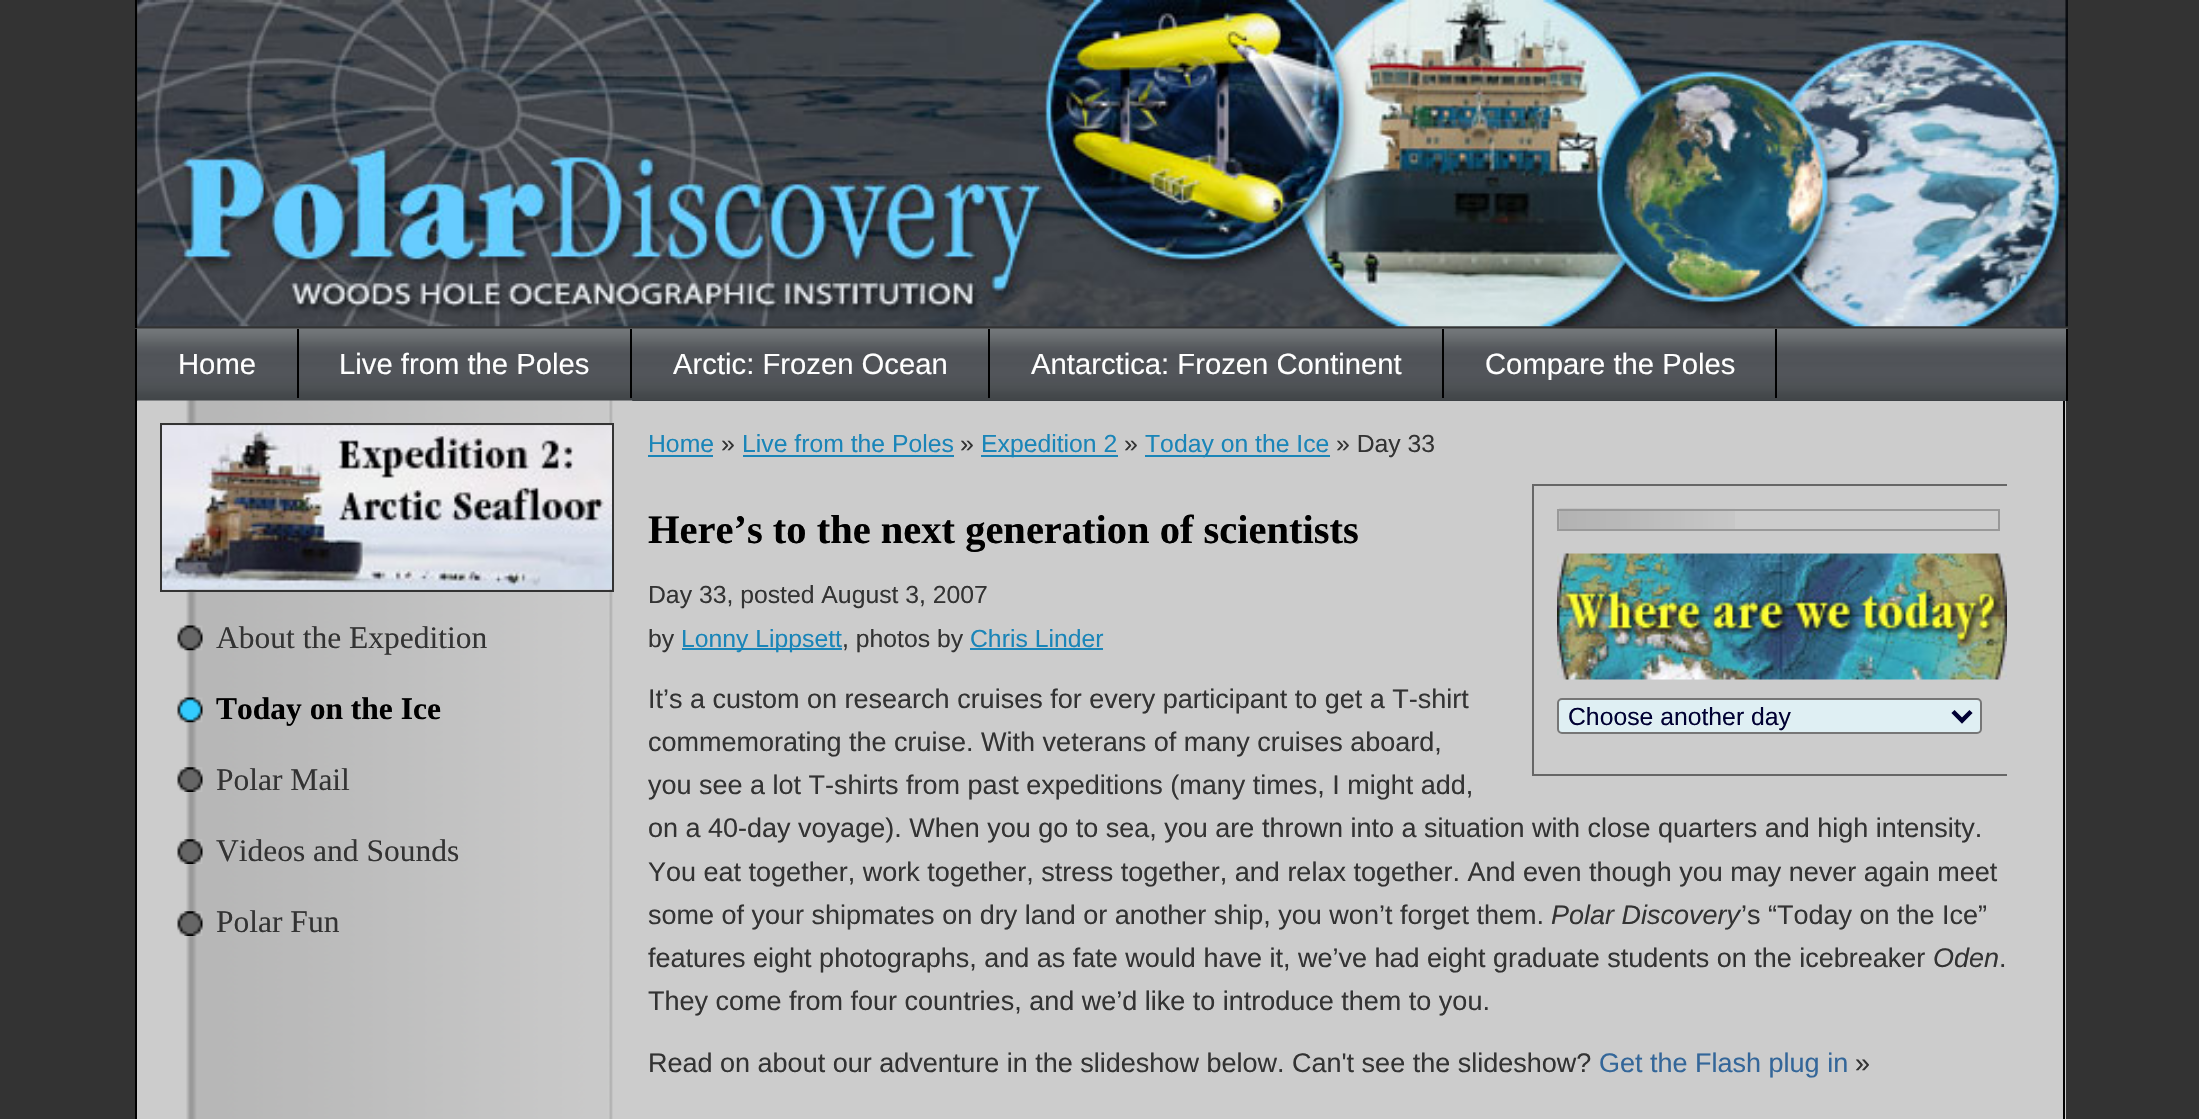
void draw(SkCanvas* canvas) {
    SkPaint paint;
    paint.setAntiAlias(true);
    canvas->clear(0xFF333333);
    paint.setColor(0xFFCCCCCC);
    canvas->drawRect(SkRect::MakeXYWH(137, 401, 1929, 718), paint);
    canvas->drawImageRect(SkImages::DeferredFromEncodedData(SkData::MakeFromFileName("img1.png")), SkRect::MakeXYWH(137, 0, 1931, 327), SkSamplingOptions());
    paint.setColor(0xFF000000);
    canvas->drawRect(SkRect::MakeXYWH(135, 0, 2, 329), paint);
    canvas->drawImageRect(SkImages::DeferredFromEncodedData(SkData::MakeFromFileName("img2.png")), SkRect::MakeXYWH(1039, 0, 1029, 327), SkSamplingOptions());
    paint.setColor(0xFF3D4145);
    canvas->drawRect(SkRect::MakeXYWH(137, 400, 1929, 1), paint);
    canvas->drawImageRect(SkImages::DeferredFromEncodedData(SkData::MakeFromFileName("img3.png")), SkRect::MakeXYWH(135, 328, 1933, 72), SkSamplingOptions());
    paint.setColor(0xFF000000);
    canvas->drawRect(SkRect::MakeXYWH(2066, 329, 2, 72), paint);
    canvas->drawRect(SkRect::MakeXYWH(135, 329, 2, 790), paint);
    canvas->drawRect(SkRect::MakeXYWH(297, 329, 2, 69), paint);
    SkFont font1(fontMgr->matchFamilyStyle("Liberation Sans", SkFontStyle::Normal()), 29.25f);
    font1.setSubpixel(true);
    paint.setColor(0xFFFFFFFF);
    canvas->drawString("Home", 178, 374, font1, paint);
    paint.setColor(0xFF000000);
    canvas->drawRect(SkRect::MakeXYWH(630, 329, 2, 69), paint);
    paint.setColor(0xFFFFFFFF);
    canvas->drawString("Live from the Poles", 339, 374, font1, paint);
    paint.setColor(0xFF000000);
    canvas->drawRect(SkRect::MakeXYWH(988, 329, 2, 69), paint);
    paint.setColor(0xFFFFFFFF);
    canvas->drawString("Arctic: Frozen Ocean", 673, 374, font1, paint);
    paint.setColor(0xFF000000);
    canvas->drawRect(SkRect::MakeXYWH(1442, 329, 2, 69), paint);
    paint.setColor(0xFFFFFFFF);
    canvas->drawString("Antarctica: Frozen Continent", 1031, 374, font1, paint);
    paint.setColor(0xFF000000);
    canvas->drawRect(SkRect::MakeXYWH(1775, 329, 2, 69), paint);
    paint.setColor(0xFFFFFFFF);
    canvas->drawString("Compare the Poles", 1485, 374, font1, paint);
    canvas->drawImageRect(SkImages::DeferredFromEncodedData(SkData::MakeFromFileName("img4.png")), SkRect::MakeXYWH(137, 400, 496, 719), SkSamplingOptions());
    paint.setColor(0xFF000000);
    canvas->drawRect(SkRect::MakeXYWH(2063, 401, 2, 718), paint);
    paint.setStyle(SkPaint::kStroke_Style);
    paint.setStrokeWidth(2);
    paint.setColor(0xFF333333);
    canvas->drawRect(SkRect::MakeXYWH(161, 424, 452, 167), paint);
    canvas->drawImageRect(SkImages::DeferredFromEncodedData(SkData::MakeFromFileName("img5.png")), SkRect::MakeXYWH(162, 425, 450, 165), SkSamplingOptions());
    canvas->drawImageRect(SkImages::DeferredFromEncodedData(SkData::MakeFromFileName("img6.png")), SkRect::MakeXYWH(177, 625, 26, 26), SkSamplingOptions());
    SkFont font2(fontMgr->matchFamilyStyle("Liberation Serif", SkFontStyle::Normal()), 31.5f);
    font2.setSubpixel(true);
    paint.setStyle(SkPaint::kFill_Style);
    canvas->drawString("About the Expedition", 216, 648, font2, paint);
    canvas->drawImageRect(SkImages::DeferredFromEncodedData(SkData::MakeFromFileName("img7.png")), SkRect::MakeXYWH(177, 697, 26, 26), SkSamplingOptions());
    SkFont font3(fontMgr->matchFamilyStyle("Liberation Serif", SkFontStyle::Bold()), 31.5f);
    font3.setSubpixel(true);
    paint.setColor(0xFF000000);
    canvas->drawString("Today on the Ice", 216, 719, font3, paint);
    canvas->drawImageRect(SkImages::DeferredFromEncodedData(SkData::MakeFromFileName("img8.png")), SkRect::MakeXYWH(177, 767, 26, 25), SkSamplingOptions());
    paint.setColor(0xFF333333);
    canvas->drawString("Polar Mail", 216, 790, font2, paint);
    canvas->drawImageRect(SkImages::DeferredFromEncodedData(SkData::MakeFromFileName("img8.png")), SkRect::MakeXYWH(177, 839, 26, 25), SkSamplingOptions());
    canvas->drawString("Videos and Sounds", 216, 861, font2, paint);
    canvas->drawImageRect(SkImages::DeferredFromEncodedData(SkData::MakeFromFileName("img8.png")), SkRect::MakeXYWH(177, 911, 26, 25), SkSamplingOptions());
    canvas->drawString("Polar Fun", 216, 932, font2, paint);
    SkFont font4(fontMgr->matchFamilyStyle("Liberation Sans", SkFontStyle::Normal()), 24.75f);
    font4.setSubpixel(true);
    paint.setColor(0xFF1A85B8);
    canvas->drawString("Home", 648, 452, font4, paint);
    canvas->drawRect(SkRect::MakeXYWH(648, 455, 65, 2), paint);
    paint.setColor(0xFF333333);
    canvas->drawString("»", 721, 452, font4, paint);
    paint.setColor(0xFF1A85B8);
    canvas->drawString("Live from the Poles", 742, 452, font4, paint);
    canvas->drawRect(SkRect::MakeXYWH(743, 455, 211, 2), paint);
    paint.setColor(0xFF333333);
    canvas->drawString("»", 960, 452, font4, paint);
    paint.setColor(0xFF1A85B8);
    canvas->drawRect(SkRect::MakeXYWH(981, 455, 137, 2), paint);
    canvas->drawString("Expedition 2", 981, 452, font4, paint);
    paint.setColor(0xFF333333);
    canvas->drawString("»", 1124, 452, font4, paint);
    paint.setColor(0xFF1A85B8);
    canvas->drawRect(SkRect::MakeXYWH(1145, 455, 185, 2), paint);
    canvas->drawString("Today on the Ice", 1145, 452, font4, paint);
    paint.setColor(0xFF333333);
    canvas->drawString("» Day 33", 1336, 452, font4, paint);
    SkFont font5(fontMgr->matchFamilyStyle("Liberation Serif", SkFontStyle::Bold()), 40.5f);
    font5.setSubpixel(true);
    paint.setColor(0xFF000000);
    canvas->drawString("Here’s to the next generation of scientists", 648, 543, font5, paint);
    paint.setColor(0xFF333333);
    canvas->drawString("Day 33, posted August 3, 2007", 648, 603, font4, paint);
    canvas->drawString("by", 648, 647, font4, paint);
    paint.setColor(0xFF1A85B8);
    canvas->drawRect(SkRect::MakeXYWH(682, 648, 160, 2), paint);
    canvas->drawString("Lonny Lippsett", 681, 647, font4, paint);
    paint.setColor(0xFF333333);
    canvas->drawString(", photos by", 842, 647, font4, paint);
    paint.setColor(0xFF1A85B8);
    canvas->drawString("Chris Linder", 970, 647, font4, paint);
    canvas->drawRect(SkRect::MakeXYWH(970, 648, 133, 2), paint);
    SkFont font6(fontMgr->matchFamilyStyle("Liberation Sans", SkFontStyle::Normal()), 27);
    font6.setSubpixel(true);
    paint.setColor(0xFF333333);
    canvas->drawString("It’s a custom on research cruises for every participant to get a T-shirt", 648, 708, font6, paint);
    canvas->drawString("commemorating the cruise. With veterans of many cruises aboard,", 648, 751, font6, paint);
    canvas->drawString("you see a lot T-shirts from past expeditions (many times, I might add,", 648, 794, font6, paint);
    canvas->drawString("on a 40-day voyage). When you go to sea, you are thrown into a situation with close quarters and high intensity.", 648, 837, font6, paint);
    canvas->drawString("You eat together, work together, stress together, and relax together. And even though you may never again meet", 648, 881, font6, paint);
    canvas->drawString("some of your shipmates on dry land or another ship, you won’t forget them.", 648, 924, font6, paint);
    SkFont font7(fontMgr->matchFamilyStyle("Liberation Sans", SkFontStyle::Italic()), 27);
    font7.setSubpixel(true);
    canvas->drawString("Polar Discovery", 1551, 924, font7, paint);
    canvas->drawString("’s “Today on the Ice”", 1741, 924, font6, paint);
    canvas->drawString("features eight photographs, and as fate would have it, we’ve had eight graduate students on the icebreaker", 648, 967, font6, paint);
    canvas->drawString("Oden", 1933, 967, font7, paint);
    canvas->drawString(".", 1999, 967, font6, paint);
    canvas->drawString("They come from four countries, and we’d like to introduce them to you.", 648, 1010, font6, paint);
    paint.setColor(0xFF666666);
    canvas->drawRect(SkRect::MakeXYWH(1532, 484, 475, 2), paint);
    canvas->drawRect(SkRect::MakeXYWH(1532, 774, 475, 2), paint);
    canvas->drawRect(SkRect::MakeXYWH(1532, 484, 2, 292), paint);
    canvas->drawImageRect(SkImages::DeferredFromEncodedData(SkData::MakeFromFileName("img9.png")), SkRect::MakeXYWH(1559, 508, 176, 21), SkSamplingOptions());
    paint.setStyle(SkPaint::kStroke_Style);
    paint.setColor(0xFF999999);
    canvas->drawRect(SkRect::MakeXYWH(1558, 510, 441, 20), paint);
    canvas->drawImageRect(SkImages::DeferredFromEncodedData(SkData::MakeFromFileName("img10.png")), SkRect::MakeXYWH(1557, 553, 450, 127), SkSamplingOptions());
    paint.setStyle(SkPaint::kFill_Style);
    paint.setColor(0xFFDFEFF3);
    canvas->drawRoundRect(SkRect::MakeXYWH(1558, 699, 423, 34), 4, 4, paint);
    paint.setStyle(SkPaint::kStroke_Style);
    paint.setColor(0xFF767676);
    canvas->drawRoundRect(SkRect::MakeXYWH(1558, 699, 423, 34), 4, 4, paint);
    paint.setStrokeWidth(4.5f);
    paint.setColor(0xFF000033);
    canvas->drawPath(SkPathBuilder().moveTo(1953, 711.5f).lineTo(1962, 720.5f).lineTo(1971, 711.5f).detach(), paint);
    paint.setStyle(SkPaint::kFill_Style);
    canvas->drawString("Choose another day", 1568, 725, font4, paint);
    paint.setColor(0xFF333333);
    canvas->drawString("Read on about our adventure in the slideshow below. Can't see the slideshow?", 648, 1072, font6, paint);
    paint.setColor(0xFF336699);
    canvas->drawString("Get the Flash plug in", 1599, 1072, font6, paint);
    paint.setColor(0xFF333333);
    canvas->drawString("»", 1855, 1072, font6, paint);
}
